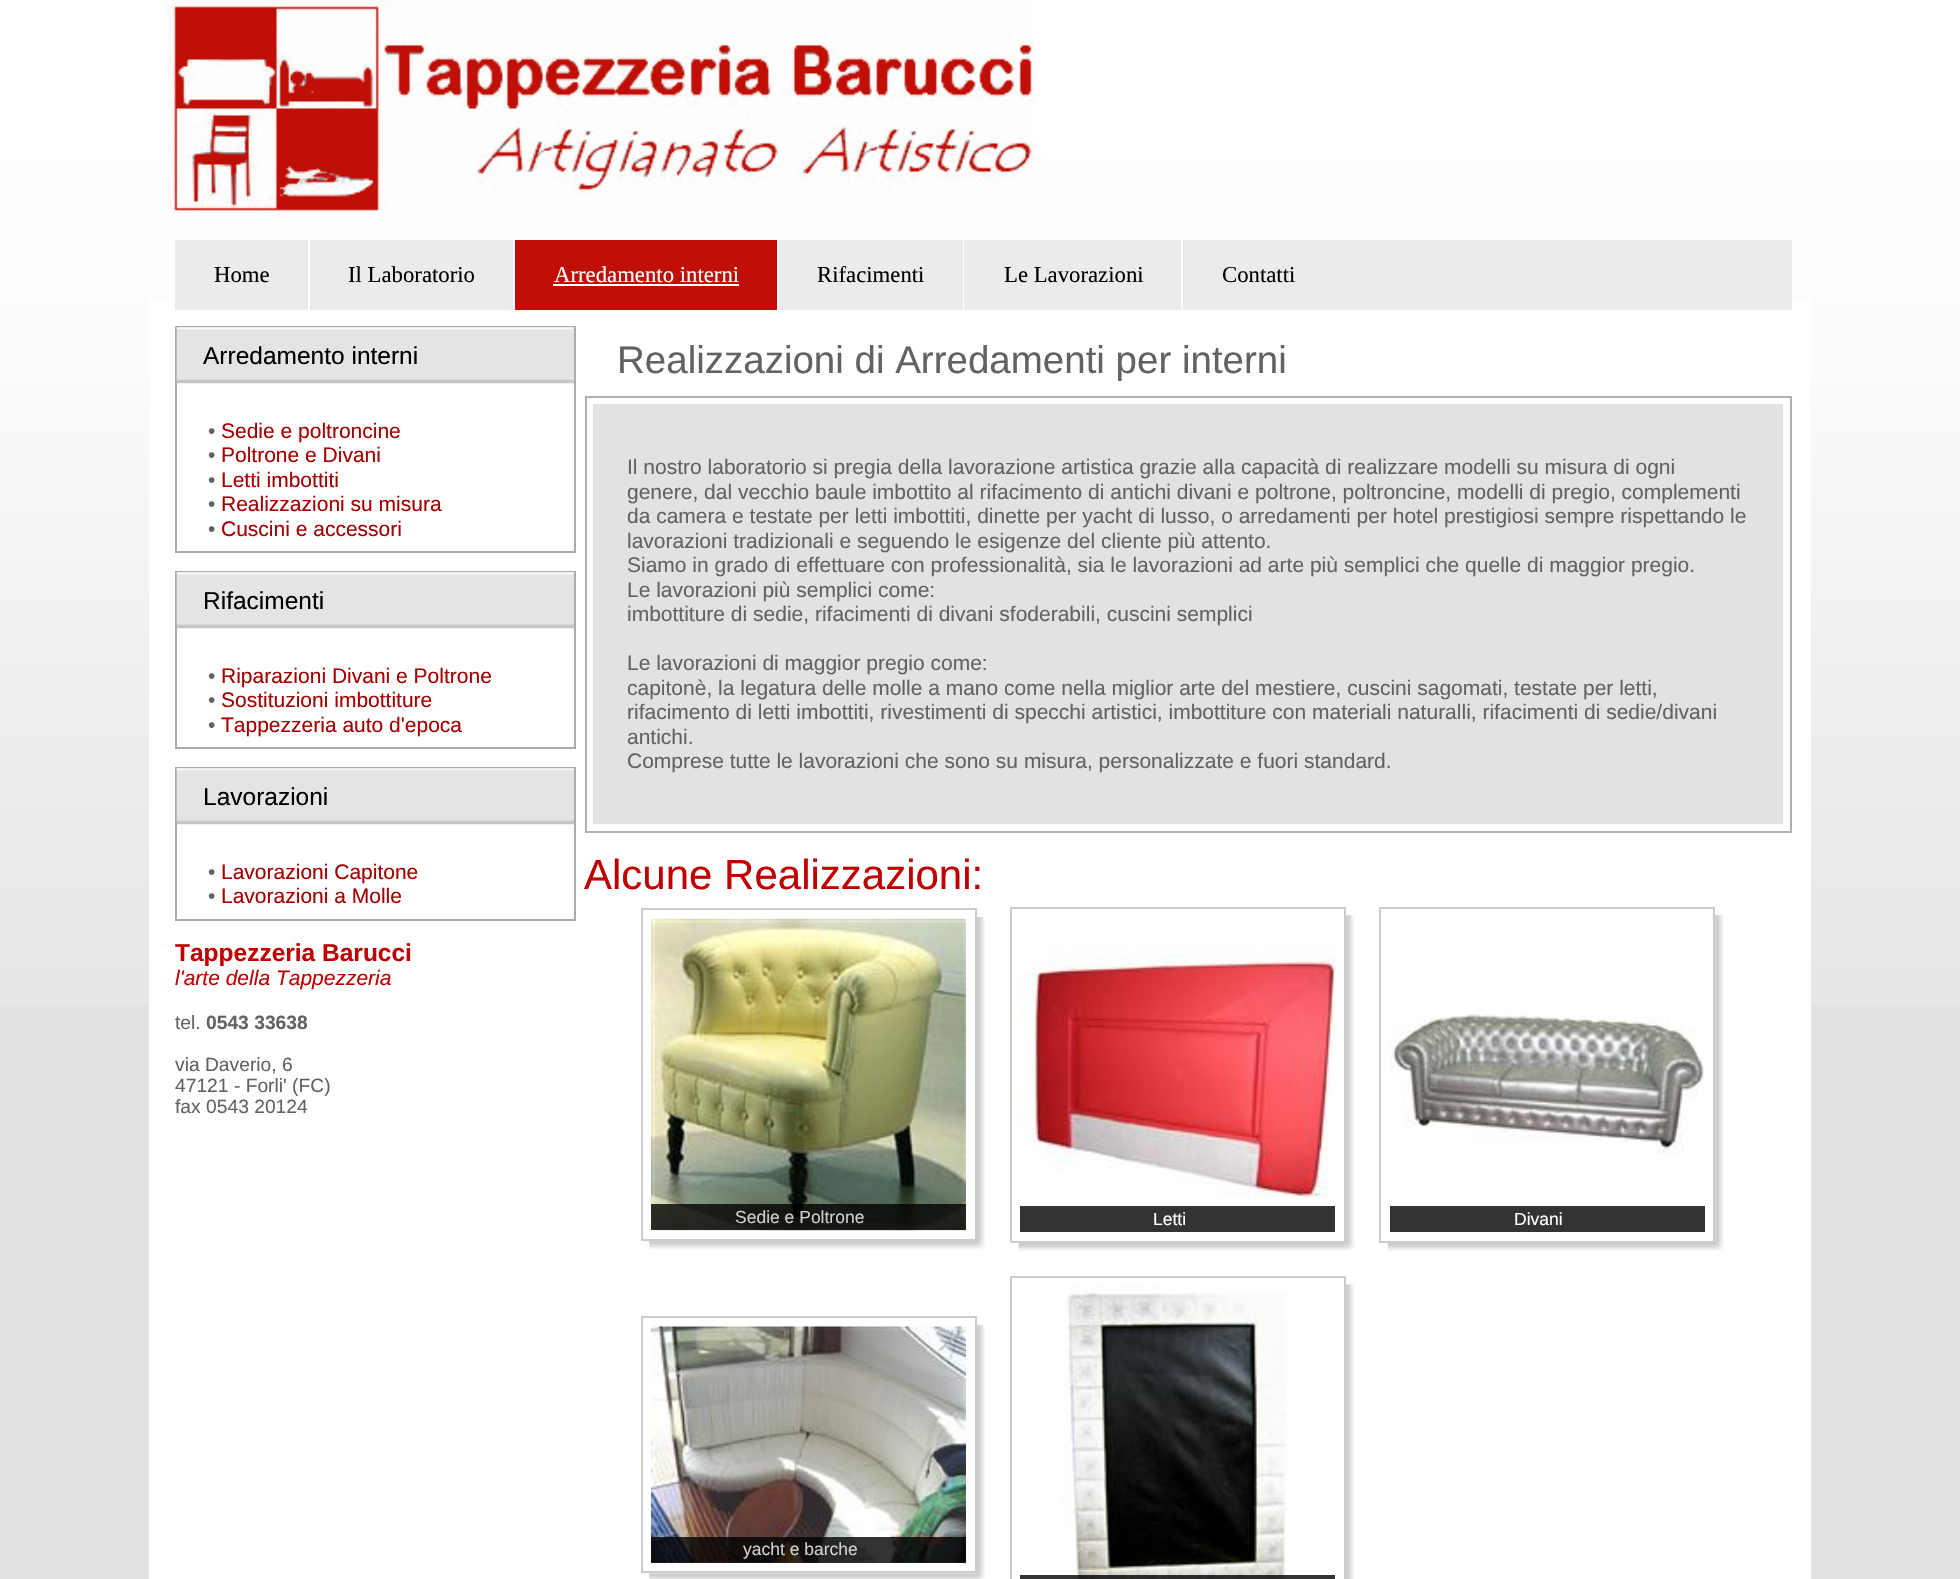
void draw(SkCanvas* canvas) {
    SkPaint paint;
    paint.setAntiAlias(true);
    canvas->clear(0xFFE2E2E2);
    canvas->drawImageRect(SkImages::DeferredFromEncodedData(SkData::MakeFromFileName("img1.png")), SkRect::MakeXYWH(0, 0, 1960, 1005), SkSamplingOptions());
    canvas->drawImageRect(SkImages::DeferredFromEncodedData(SkData::MakeFromFileName("img2.png")), SkRect::MakeXYWH(166, 0, 869, 221), SkSamplingOptions());
    paint.setColor(0xFFFFFFFF);
    canvas->drawRect(SkRect::MakeXYWH(149, 299, 1662, 1280), paint);
    paint.setColor(0xFFEBEBEB);
    canvas->drawRect(SkRect::MakeXYWH(175, 240, 1617, 70), paint);
    SkFont font1(fontMgr->matchFamilyStyle("Liberation Serif", SkFontStyle::Normal()), 22.75f);
    font1.setSubpixel(true);
    paint.setColor(0xFF000000);
    canvas->drawString("Home", 214, 282, font1, paint);
    paint.setColor(0xFFFFFFFF);
    canvas->drawRect(SkRect::MakeXYWH(308, 240, 2, 70), paint);
    paint.setColor(0xFF000000);
    canvas->drawString("Il Laboratorio", 348, 282, font1, paint);
    paint.setColor(0xFFFFFFFF);
    canvas->drawRect(SkRect::MakeXYWH(513, 240, 2, 70), paint);
    paint.setColor(0xFFC00F07);
    canvas->drawRect(SkRect::MakeXYWH(515, 240, 262, 70), paint);
    paint.setColor(0xFFFFFFFF);
    canvas->drawString("Arredamento interni", 554, 282, font1, paint);
    canvas->drawRect(SkRect::MakeXYWH(553, 284, 186, 2), paint);
    canvas->drawRect(SkRect::MakeXYWH(777, 240, 2, 70), paint);
    paint.setColor(0xFF000000);
    canvas->drawString("Rifacimenti", 817, 282, font1, paint);
    paint.setColor(0xFFFFFFFF);
    canvas->drawRect(SkRect::MakeXYWH(963, 240, 1, 70), paint);
    paint.setColor(0xFF000000);
    canvas->drawString("Le Lavorazioni", 1004, 282, font1, paint);
    paint.setColor(0xFFFFFFFF);
    canvas->drawRect(SkRect::MakeXYWH(1181, 240, 2, 70), paint);
    paint.setColor(0xFF000000);
    canvas->drawString("Contatti", 1222, 282, font1, paint);
    paint.setStyle(SkPaint::kStroke_Style);
    paint.setStrokeWidth(2);
    paint.setColor(0xFFACACAC);
    canvas->drawRect(SkRect::MakeXYWH(176, 327, 399, 225), paint);
    canvas->drawImageRect(SkImages::DeferredFromEncodedData(SkData::MakeFromFileName("img3.png")), SkRect::MakeXYWH(176, 327, 398, 57), SkSamplingOptions());
    SkFont font2(fontMgr->matchFamilyStyle("Liberation Sans", SkFontStyle::Normal()), 24.5f);
    font2.setSubpixel(true);
    paint.setStyle(SkPaint::kFill_Style);
    paint.setColor(0xFF000000);
    canvas->drawString("Arredamento interni", 203, 364, font2, paint);
    SkFont font3(fontMgr->matchFamilyStyle("Liberation Sans", SkFontStyle::Normal()), 21);
    font3.setSubpixel(true);
    paint.setColor(0xFF626262);
    canvas->drawString("•", 208, 438, font3, paint);
    paint.setColor(0xFFA40000);
    canvas->drawString("Sedie e poltroncine", 221, 438, font3, paint);
    paint.setColor(0xFF626262);
    canvas->drawString("•", 208, 462, font3, paint);
    paint.setColor(0xFFA40000);
    canvas->drawString("Poltrone e Divani", 221, 462, font3, paint);
    paint.setColor(0xFF626262);
    canvas->drawString("•", 208, 487, font3, paint);
    paint.setColor(0xFFA40000);
    canvas->drawString("Letti imbottiti", 221, 487, font3, paint);
    paint.setColor(0xFF626262);
    canvas->drawString("•", 208, 511, font3, paint);
    paint.setColor(0xFFA40000);
    canvas->drawString("Realizzazioni su misura", 221, 511, font3, paint);
    paint.setColor(0xFF626262);
    canvas->drawString("•", 208, 536, font3, paint);
    paint.setColor(0xFFA40000);
    canvas->drawString("Cuscini e accessori", 221, 536, font3, paint);
    paint.setStyle(SkPaint::kStroke_Style);
    paint.setColor(0xFFACACAC);
    canvas->drawRect(SkRect::MakeXYWH(176, 572, 399, 176), paint);
    canvas->drawImageRect(SkImages::DeferredFromEncodedData(SkData::MakeFromFileName("img3.png")), SkRect::MakeXYWH(176, 572, 398, 57), SkSamplingOptions());
    paint.setStyle(SkPaint::kFill_Style);
    paint.setColor(0xFF000000);
    canvas->drawString("Rifacimenti", 203, 609, font2, paint);
    paint.setColor(0xFF626262);
    canvas->drawString("•", 208, 683, font3, paint);
    paint.setColor(0xFFA40000);
    canvas->drawString("Riparazioni Divani e Poltrone", 221, 683, font3, paint);
    paint.setColor(0xFF626262);
    canvas->drawString("•", 208, 707, font3, paint);
    paint.setColor(0xFFA40000);
    canvas->drawString("Sostituzioni imbottiture", 221, 707, font3, paint);
    paint.setColor(0xFF626262);
    canvas->drawString("•", 208, 732, font3, paint);
    paint.setColor(0xFFA40000);
    canvas->drawString("Tappezzeria auto d'epoca", 221, 732, font3, paint);
    paint.setStyle(SkPaint::kStroke_Style);
    paint.setColor(0xFFACACAC);
    canvas->drawRect(SkRect::MakeXYWH(176, 768, 399, 152), paint);
    canvas->drawImageRect(SkImages::DeferredFromEncodedData(SkData::MakeFromFileName("img3.png")), SkRect::MakeXYWH(176, 768, 398, 57), SkSamplingOptions());
    paint.setStyle(SkPaint::kFill_Style);
    paint.setColor(0xFF000000);
    canvas->drawString("Lavorazioni", 203, 805, font2, paint);
    paint.setColor(0xFF626262);
    canvas->drawString("•", 208, 879, font3, paint);
    paint.setColor(0xFFA40000);
    canvas->drawString("Lavorazioni Capitone", 221, 879, font3, paint);
    paint.setColor(0xFF626262);
    canvas->drawString("•", 208, 903, font3, paint);
    paint.setColor(0xFFA40000);
    canvas->drawString("Lavorazioni a Molle", 221, 903, font3, paint);
    SkFont font4(fontMgr->matchFamilyStyle("Liberation Sans", SkFontStyle::Bold()), 24.5f);
    font4.setSubpixel(true);
    paint.setColor(0xFFC00000);
    canvas->drawString("Tappezzeria Barucci", 175, 961, font4, paint);
    SkFont font5(fontMgr->matchFamilyStyle("Liberation Sans", SkFontStyle::Italic()), 21);
    font5.setSubpixel(true);
    canvas->drawString("l'arte della Tappezzeria", 175, 985, font5, paint);
    SkFont font6(fontMgr->matchFamilyStyle("Liberation Sans", SkFontStyle::Normal()), 19.25f);
    font6.setSubpixel(true);
    paint.setColor(0xFF626262);
    canvas->drawString("tel.", 175, 1029, font6, paint);
    SkFont font7(fontMgr->matchFamilyStyle("Liberation Sans", SkFontStyle::Bold()), 19.25f);
    font7.setSubpixel(true);
    canvas->drawString("0543 33638", 206, 1029, font7, paint);
    canvas->drawString("via Daverio, 6", 175, 1071, font6, paint);
    canvas->drawString("47121 - Forli' (FC)", 175, 1092, font6, paint);
    canvas->drawString("fax 0543 20124", 175, 1113, font6, paint);
    SkFont font8(fontMgr->matchFamilyStyle("Liberation Sans", SkFontStyle::Normal()), 38.5f);
    font8.setSubpixel(true);
    canvas->drawString("Realizzazioni di Arredamenti per interni", 617, 373, font8, paint);
    paint.setStyle(SkPaint::kStroke_Style);
    paint.setColor(0xFFB0B0B0);
    canvas->drawRect(SkRect::MakeXYWH(586, 397, 1205, 435), paint);
    paint.setStyle(SkPaint::kFill_Style);
    paint.setColor(0xFFE2E2E2);
    canvas->drawRect(SkRect::MakeXYWH(593, 404, 1190, 420), paint);
    paint.setColor(0xFF626262);
    canvas->drawString("Il nostro laboratorio si pregia della lavorazione artistica grazie alla capacità di realizzare modelli su misura di ogni", 627, 474, font3, paint);
    canvas->drawString("genere, dal vecchio baule imbottito al rifacimento di antichi divani e poltrone, poltroncine, modelli di pregio, complementi", 627, 499, font3, paint);
    canvas->drawString("da camera e testate per letti imbottiti, dinette per yacht di lusso, o arredamenti per hotel prestigiosi sempre rispettando le", 627, 523, font3, paint);
    canvas->drawString("lavorazioni tradizionali e seguendo le esigenze del cliente più attento.", 627, 548, font3, paint);
    canvas->drawString("Siamo in grado di effettuare con professionalità, sia le lavorazioni ad arte più semplici che quelle di maggior pregio.", 627, 572, font3, paint);
    canvas->drawString("Le lavorazioni più semplici come:", 627, 597, font3, paint);
    canvas->drawString("imbottiture di sedie, rifacimenti di divani sfoderabili, cuscini semplici", 627, 621, font3, paint);
    canvas->drawString("Le lavorazioni di maggior pregio come:", 627, 670, font3, paint);
    canvas->drawString("capitonè, la legatura delle molle a mano come nella miglior arte del mestiere, cuscini sagomati, testate per letti,", 627, 695, font3, paint);
    canvas->drawString("rifacimento di letti imbottiti, rivestimenti di specchi artistici, imbottiture con materiali naturalli, rifacimenti di sedie/divani", 627, 719, font3, paint);
    canvas->drawString("antichi.", 627, 744, font3, paint);
    canvas->drawString("Comprese tutte le lavorazioni che sono su misura, personalizzate e fuori standard.", 627, 768, font3, paint);
    SkFont font9(fontMgr->matchFamilyStyle("Liberation Sans", SkFontStyle::Normal()), 42);
    font9.setSubpixel(true);
    paint.setColor(0xFFC00000);
    canvas->drawString("Alcune Realizzazioni:", 584, 889, font9, paint);
    canvas->drawImageRect(SkImages::DeferredFromEncodedData(SkData::MakeFromFileName("img4.png")), SkRect::MakeXYWH(649, 917, 336, 333), SkSamplingOptions());
    paint.setStyle(SkPaint::kStroke_Style);
    paint.setColor(0xFFCCCCCC);
    canvas->drawRect(SkRect::MakeXYWH(642, 909, 334, 331), paint);
    canvas->drawImageRect(SkImages::DeferredFromEncodedData(SkData::MakeFromFileName("img5.png")), SkRect::MakeXYWH(651, 918, 315, 313), SkSamplingOptions());
    paint.setStyle(SkPaint::kFill_Style);
    paint.setColor(0xCC000000);
    canvas->drawRect(SkRect::MakeXYWH(651, 1204, 315, 26), paint);
    SkFont font10(fontMgr->matchFamilyStyle("Liberation Sans", SkFontStyle::Normal()), 17.5f);
    font10.setSubpixel(true);
    paint.setColor(0xFFD0D0CF);
    canvas->drawString("Sedie e Poltrone", 735, 1223, font10, paint);
    canvas->drawImageRect(SkImages::DeferredFromEncodedData(SkData::MakeFromFileName("img6.png")), SkRect::MakeXYWH(1018, 915, 337, 336), SkSamplingOptions());
    paint.setStyle(SkPaint::kStroke_Style);
    paint.setColor(0xFFCCCCCC);
    canvas->drawRect(SkRect::MakeXYWH(1011, 908, 334, 334), paint);
    canvas->drawImageRect(SkImages::DeferredFromEncodedData(SkData::MakeFromFileName("img7.png")), SkRect::MakeXYWH(1020, 945, 316, 253), SkSamplingOptions());
    paint.setStyle(SkPaint::kFill_Style);
    paint.setColor(0xFF333333);
    canvas->drawRect(SkRect::MakeXYWH(1020, 1206, 315, 26), paint);
    paint.setColor(0xFFFFFFFF);
    canvas->drawString("Letti", 1153, 1225, font10, paint);
    canvas->drawImageRect(SkImages::DeferredFromEncodedData(SkData::MakeFromFileName("img8.png")), SkRect::MakeXYWH(1387, 915, 337, 336), SkSamplingOptions());
    paint.setStyle(SkPaint::kStroke_Style);
    paint.setColor(0xFFCCCCCC);
    canvas->drawRect(SkRect::MakeXYWH(1380, 908, 334, 334), paint);
    canvas->drawImageRect(SkImages::DeferredFromEncodedData(SkData::MakeFromFileName("img9.png")), SkRect::MakeXYWH(1389, 1014, 315, 141), SkSamplingOptions());
    paint.setStyle(SkPaint::kFill_Style);
    paint.setColor(0xFF333333);
    canvas->drawRect(SkRect::MakeXYWH(1390, 1206, 315, 26), paint);
    paint.setColor(0xFFFFFFFF);
    canvas->drawString("Divani", 1514, 1225, font10, paint);
    canvas->drawImageRect(SkImages::DeferredFromEncodedData(SkData::MakeFromFileName("img10.png")), SkRect::MakeXYWH(649, 1324, 336, 255), SkSamplingOptions());
    paint.setStyle(SkPaint::kStroke_Style);
    paint.setColor(0xFFCCCCCC);
    canvas->drawRect(SkRect::MakeXYWH(642, 1317, 334, 255), paint);
    canvas->drawImageRect(SkImages::DeferredFromEncodedData(SkData::MakeFromFileName("img11.png")), SkRect::MakeXYWH(651, 1326, 315, 237), SkSamplingOptions());
    paint.setStyle(SkPaint::kFill_Style);
    paint.setColor(0xCC000000);
    canvas->drawRect(SkRect::MakeXYWH(651, 1537, 315, 26), paint);
    paint.setColor(0xFFD0D0CF);
    canvas->drawString("yacht e barche", 743, 1555, font10, paint);
    canvas->drawImageRect(SkImages::DeferredFromEncodedData(SkData::MakeFromFileName("img12.png")), SkRect::MakeXYWH(1346, 1284, 9, 295), SkSamplingOptions());
    paint.setStyle(SkPaint::kStroke_Style);
    paint.setColor(0xFFCCCCCC);
    canvas->drawRect(SkRect::MakeXYWH(1011, 1277, 334, 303), paint);
    canvas->drawImageRect(SkImages::DeferredFromEncodedData(SkData::MakeFromFileName("img13.png")), SkRect::MakeXYWH(1061, 1286, 226, 293), SkSamplingOptions());
    paint.setStyle(SkPaint::kFill_Style);
    paint.setColor(0xCC000000);
    canvas->drawRect(SkRect::MakeXYWH(1020, 1575, 315, 4), paint);
}
